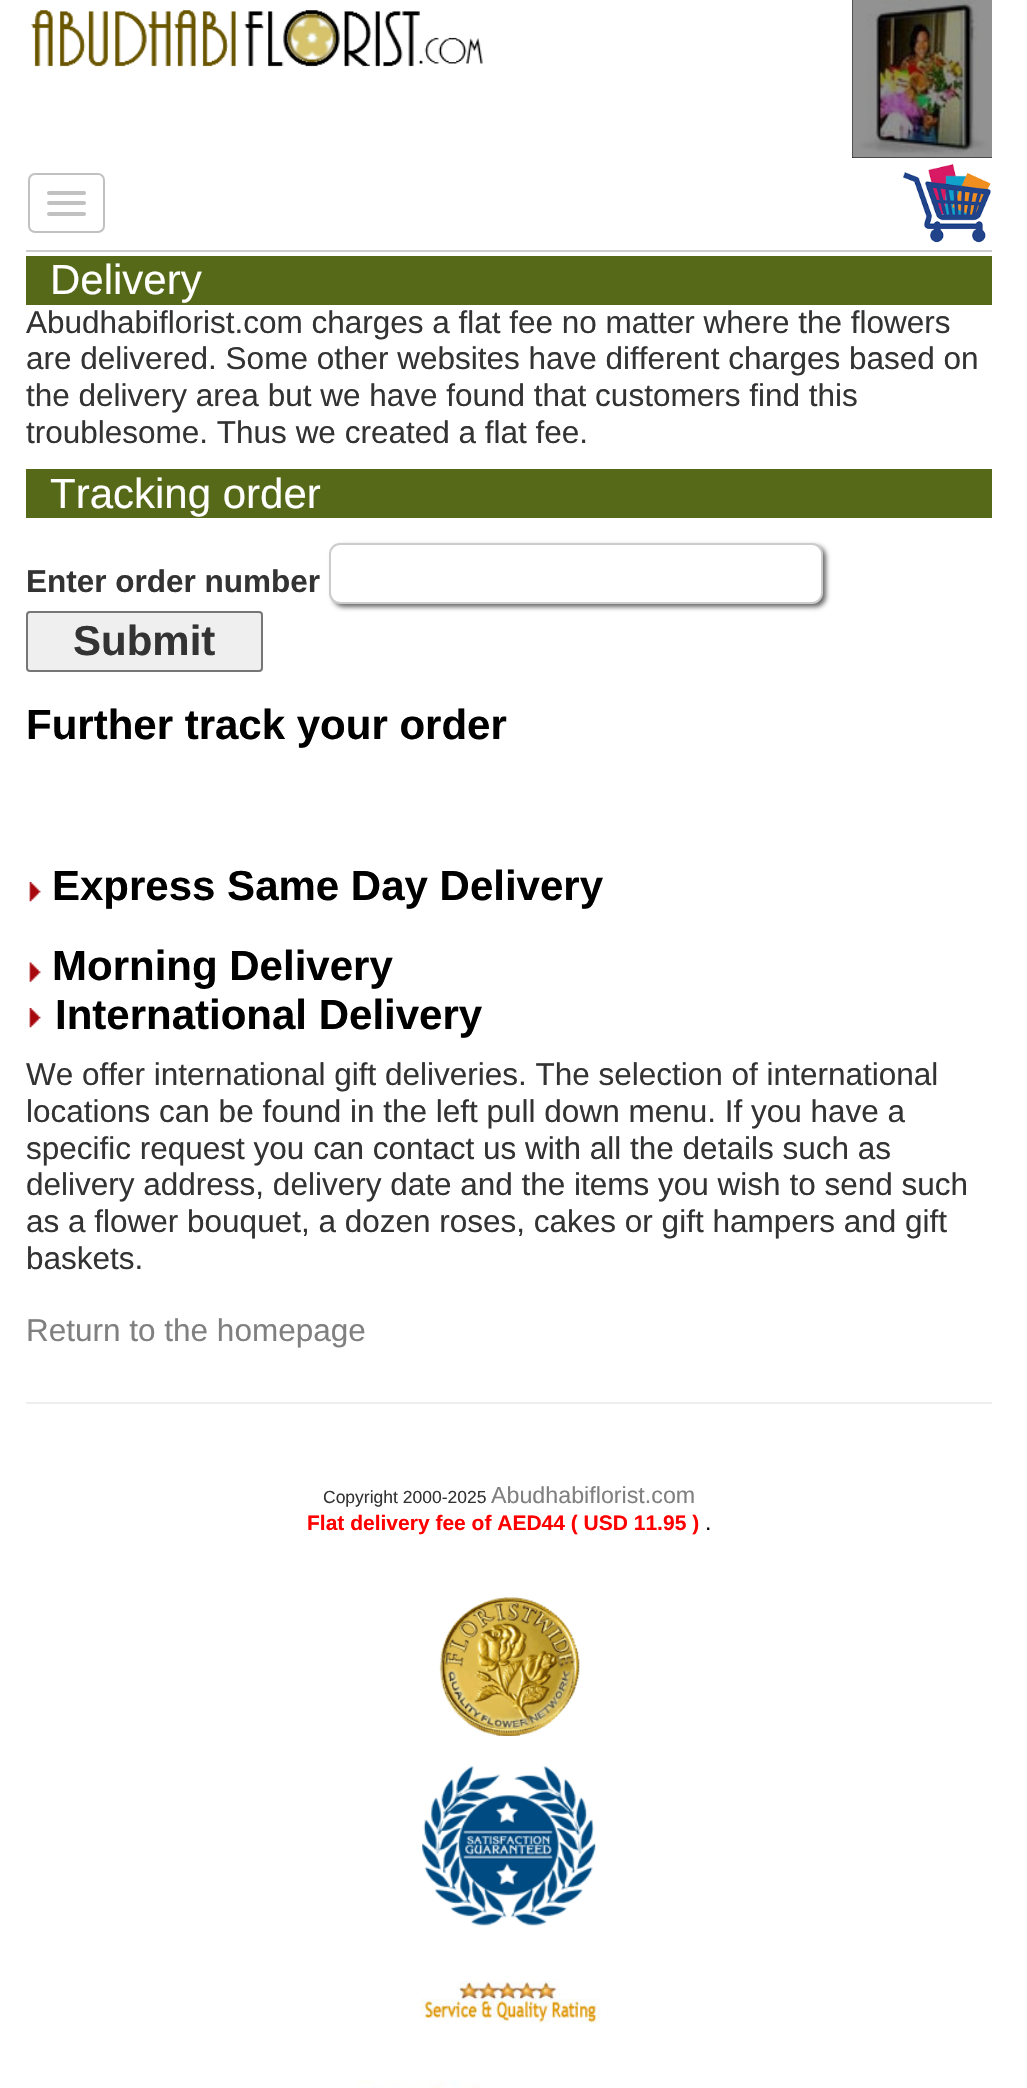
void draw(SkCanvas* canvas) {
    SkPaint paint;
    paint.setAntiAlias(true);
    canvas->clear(0xFFFFFFFF);
    canvas->drawImageRect(SkImages::DeferredFromEncodedData(SkData::MakeFromFileName("img1.png")), SkRect::MakeXYWH(31, 10, 452, 57), SkSamplingOptions());
    paint.setColor(0xFF000000);
    canvas->drawRect(SkRect::MakeXYWH(852, 0, 140, 158), paint);
    canvas->drawImageRect(SkImages::DeferredFromEncodedData(SkData::MakeFromFileName("img2.png")), SkRect::MakeXYWH(852, 0, 140, 158), SkSamplingOptions());
    paint.setStyle(SkPaint::kStroke_Style);
    paint.setStrokeWidth(2);
    paint.setColor(0xFFC1C1C1);
    canvas->drawRoundRect(SkRect::MakeXYWH(29, 174, 75, 58), 6, 6, paint);
    paint.setStyle(SkPaint::kFill_Style);
    canvas->drawRoundRect(SkRect::MakeXYWH(47, 191, 39, 4), 2, 2, paint);
    canvas->drawRoundRect(SkRect::MakeXYWH(47, 201, 39, 4), 2, 2, paint);
    canvas->drawRoundRect(SkRect::MakeXYWH(47, 212, 39, 4), 2, 2, paint);
    canvas->drawImageRect(SkImages::DeferredFromEncodedData(SkData::MakeFromFileName("img3.png")), SkRect::MakeXYWH(903, 164, 88, 79), SkSamplingOptions());
    paint.setColor(0xFFCCCCCC);
    canvas->drawRect(SkRect::MakeXYWH(26, 250, 966, 2), paint);
    paint.setColor(0xFF566918);
    canvas->drawRect(SkRect::MakeXYWH(26, 256, 966, 49), paint);
    SkFont font1(fontMgr->matchFamilyStyle("Liberation Sans", SkFontStyle::Normal()), 42);
    font1.setSubpixel(true);
    paint.setColor(0xFFFFFFFF);
    canvas->drawString("Delivery", 50, 294, font1, paint);
    SkFont font2(fontMgr->matchFamilyStyle("Liberation Sans", SkFontStyle::Normal()), 31.5f);
    font2.setSubpixel(true);
    paint.setColor(0xFF333333);
    canvas->drawString("Abudhabiflorist.com charges a flat fee no matter where the flowers", 26, 333, font2, paint);
    canvas->drawString("are delivered. Some other websites have different charges based on", 26, 369, font2, paint);
    canvas->drawString("the delivery area but we have found that customers find this", 26, 406, font2, paint);
    canvas->drawString("troublesome. Thus we created a flat fee.", 26, 443, font2, paint);
    paint.setColor(0xFF566918);
    canvas->drawRect(SkRect::MakeXYWH(26, 469, 966, 49), paint);
    paint.setColor(0xFFFFFFFF);
    canvas->drawString("Tracking order", 50, 508, font1, paint);
    SkFont font3(fontMgr->matchFamilyStyle("Liberation Sans", SkFontStyle::Bold()), 31.5f);
    font3.setSubpixel(true);
    paint.setColor(0xFF333333);
    canvas->drawString("Enter order number", 26, 592, font3, paint);
    paint.setColor(0xFF666666);
    paint.setMaskFilter(SkMaskFilter::MakeBlur(kNormal_SkBlurStyle, 2.5f));
    canvas->drawRoundRect(SkRect::MakeXYWH(333, 546, 493, 61), 11, 11, paint);
    paint.setMaskFilter(nullptr);
    paint.setColor(0xFFFFFFFF);
    canvas->drawRoundRect(SkRect::MakeXYWH(330, 544, 492, 59), 10, 10, paint);
    paint.setStyle(SkPaint::kStroke_Style);
    paint.setColor(0xFFCCCCCC);
    canvas->drawRoundRect(SkRect::MakeXYWH(330, 544, 492, 59), 10, 10, paint);
    paint.setStyle(SkPaint::kFill_Style);
    paint.setColor(0xFFEFEFEF);
    canvas->drawRoundRect(SkRect::MakeXYWH(27, 612, 235, 59), 3, 3, paint);
    paint.setStyle(SkPaint::kStroke_Style);
    paint.setColor(0xFF767676);
    canvas->drawRoundRect(SkRect::MakeXYWH(27, 612, 235, 59), 3, 3, paint);
    SkFont font4(fontMgr->matchFamilyStyle("Liberation Sans", SkFontStyle::Bold()), 42);
    font4.setSubpixel(true);
    paint.setStyle(SkPaint::kFill_Style);
    paint.setColor(0xFF333333);
    canvas->drawString("Submit", 73, 655, font4, paint);
    paint.setColor(0xFF000000);
    canvas->drawString("Further track your order", 26, 739, font4, paint);
    canvas->drawImageRect(SkImages::DeferredFromEncodedData(SkData::MakeFromFileName("img4.png")), SkRect::MakeXYWH(29, 882, 12, 20), SkSamplingOptions());
    canvas->drawString("Express Same Day Delivery", 52, 900, font4, paint);
    canvas->drawImageRect(SkImages::DeferredFromEncodedData(SkData::MakeFromFileName("img5.png")), SkRect::MakeXYWH(29, 962, 12, 20), SkSamplingOptions());
    canvas->drawString("Morning Delivery", 52, 980, font4, paint);
    canvas->drawImageRect(SkImages::DeferredFromEncodedData(SkData::MakeFromFileName("img4.png")), SkRect::MakeXYWH(29, 1008, 12, 20), SkSamplingOptions());
    canvas->drawString("International Delivery", 55, 1029, font4, paint);
    paint.setColor(0xFF333333);
    canvas->drawString("We offer international gift deliveries. The selection of international", 26, 1085, font2, paint);
    canvas->drawString("locations can be found in the left pull down menu. If you have a", 26, 1122, font2, paint);
    canvas->drawString("specific request you can contact us with all the details such as", 26, 1159, font2, paint);
    canvas->drawString("delivery address, delivery date and the items you wish to send such", 26, 1195, font2, paint);
    canvas->drawString("as a flower bouquet, a dozen roses, cakes or gift hampers and gift", 26, 1232, font2, paint);
    canvas->drawString("baskets.", 26, 1269, font2, paint);
    paint.setColor(0xFF808080);
    canvas->drawString("Return to the homepage", 26, 1341, font2, paint);
    paint.setColor(0xFFEEEEEE);
    canvas->drawRect(SkRect::MakeXYWH(26, 1402, 966, 2), paint);
    SkFont font5(fontMgr->matchFamilyStyle("Liberation Sans", SkFontStyle::Normal()), 17.5f);
    font5.setSubpixel(true);
    paint.setColor(0xFF333333);
    canvas->drawString("Copyright 2000-2025", 323, 1503, font5, paint);
    SkFont font6(fontMgr->matchFamilyStyle("Liberation Sans", SkFontStyle::Normal()), 23.25f);
    font6.setSubpixel(true);
    paint.setColor(0xFF808080);
    canvas->drawString("Abudhabiflorist.com", 491, 1503, font6, paint);
    SkFont font7(fontMgr->matchFamilyStyle("Liberation Sans", SkFontStyle::Bold()), 21);
    font7.setSubpixel(true);
    paint.setColor(0xFFFF0000);
    canvas->drawString("Flat delivery fee of AED44 ( USD 11.95 )", 307, 1530, font7, paint);
    SkFont font8(fontMgr->matchFamilyStyle("Liberation Sans", SkFontStyle::Normal()), 23);
    font8.setSubpixel(true);
    paint.setColor(0xFF000000);
    canvas->drawString(".", 705, 1530, font8, paint);
    canvas->drawImageRect(SkImages::DeferredFromEncodedData(SkData::MakeFromFileName("img6.png")), SkRect::MakeXYWH(439, 1597, 141, 139), SkSamplingOptions());
    canvas->drawImageRect(SkImages::DeferredFromEncodedData(SkData::MakeFromFileName("img7.png")), SkRect::MakeXYWH(422, 1766, 174, 160), SkSamplingOptions());
    canvas->drawImageRect(SkImages::DeferredFromEncodedData(SkData::MakeFromFileName("img8.png")), SkRect::MakeXYWH(420, 1981, 181, 42), SkSamplingOptions());
    canvas->drawImageRect(SkImages::DeferredFromEncodedData(SkData::MakeFromFileName("img9.png")), SkRect::MakeXYWH(358, 2080, 123, 8), SkSamplingOptions());
}
